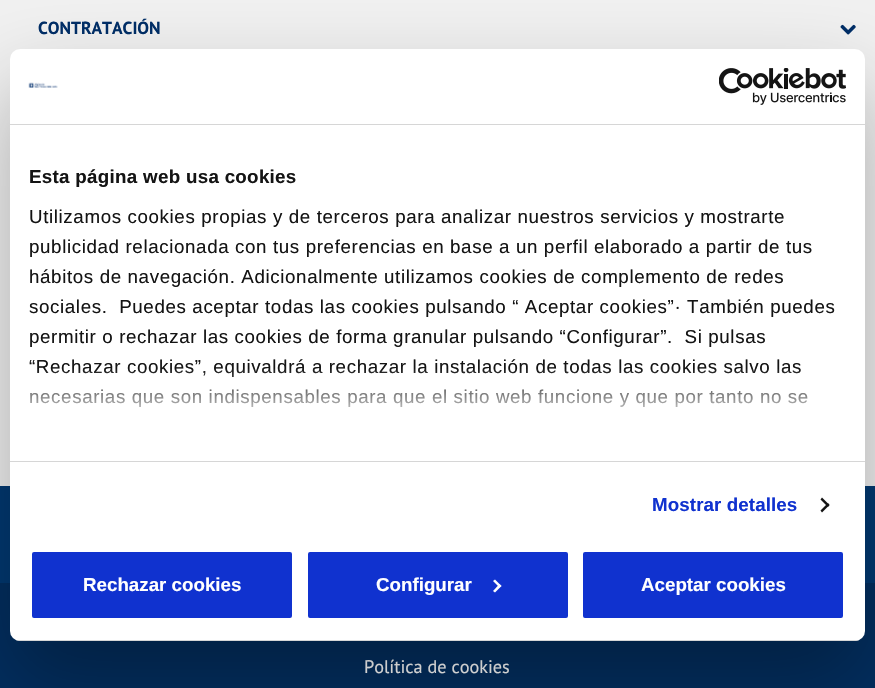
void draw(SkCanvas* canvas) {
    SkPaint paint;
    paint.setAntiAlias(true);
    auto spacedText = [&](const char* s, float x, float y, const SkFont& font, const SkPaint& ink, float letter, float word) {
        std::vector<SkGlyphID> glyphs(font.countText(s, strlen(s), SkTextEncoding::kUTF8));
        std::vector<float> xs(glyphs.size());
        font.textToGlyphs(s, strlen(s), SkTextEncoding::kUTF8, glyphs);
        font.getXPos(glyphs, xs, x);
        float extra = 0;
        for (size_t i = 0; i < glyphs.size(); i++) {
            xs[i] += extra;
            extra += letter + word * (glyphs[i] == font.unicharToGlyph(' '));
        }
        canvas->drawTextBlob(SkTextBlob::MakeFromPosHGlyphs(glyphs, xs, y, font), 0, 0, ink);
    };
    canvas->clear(0xFFF1F1F1);
    SkFont font1(fontMgr->matchFamilyStyle("PT Sans", SkFontStyle::Bold()), 17.5f);
    font1.setSubpixel(true);
    paint.setColor(0xFF002E67);
    canvas->drawString("CONTRATACIÓN", 38, 34, font1, paint);
    canvas->drawImageRect(SkImages::DeferredFromEncodedData(SkData::MakeFromFileName("img1.png")), SkRect::MakeXYWH(840, 24, 16, 11), SkSamplingOptions());
    paint.setColor(0xFF013871);
    canvas->drawRect(SkRect::MakeXYWH(0, 486, 875, 97), paint);
    paint.setColor(0xFF022E5F);
    canvas->drawRect(SkRect::MakeXYWH(0, 583, 875, 105), paint);
    SkFont font2(fontMgr->matchFamilyStyle("PT Sans", SkFontStyle::Normal()), 18.25f);
    font2.setSubpixel(true);
    paint.setColor(0xFFFFFFFF);
    canvas->drawString("Política de cookies", 364, 673, font2, paint);
    paint.setColor(0x4D000000);
    paint.setMaskFilter(SkMaskFilter::MakeBlur(kNormal_SkBlurStyle, 42.5f));
    canvas->drawRoundRect(SkRect::MakeXYWH(10, 89, 855, 592), 10, 10, paint);
    paint.setMaskFilter(nullptr);
    paint.setColor(0xFFFFFFFF);
    canvas->drawRoundRect(SkRect::MakeXYWH(10, 49, 855, 592), 10, 10, paint);
    paint.setColor(0xFFD6D6D6);
    canvas->drawRect(SkRect::MakeXYWH(10, 124, 855, 1), paint);
    canvas->drawImageRect(SkImages::DeferredFromEncodedData(SkData::MakeFromFileName("img2.png")), SkRect::MakeXYWH(28, 82, 30, 6), SkSamplingOptions());
    canvas->drawImageRect(SkImages::DeferredFromEncodedData(SkData::MakeFromFileName("img3.png")), SkRect::MakeXYWH(719, 68, 127, 37), SkSamplingOptions());
    canvas->drawRect(SkRect::MakeXYWH(10, 461, 855, 1), paint);
    SkFont font3(fontMgr->matchFamilyStyle("Liberation Sans", SkFontStyle::Bold()), 18.75f);
    font3.setSubpixel(true);
    paint.setColor(0xFF141414);
    spacedText("Esta página web usa cookies", 29, 183, font3, paint, 0.3f, 0);
    SkFont font4(fontMgr->matchFamilyStyle("Liberation Sans", SkFontStyle::Normal()), 18.75f);
    font4.setSubpixel(true);
    spacedText("Utilizamos cookies propias y de terceros para analizar nuestros servicios y mostrarte", 29, 223, font4, paint, 0.62f, 0);
    spacedText("publicidad relacionada con tus preferencias en base a un perfil elaborado a partir de tus", 29, 253, font4, paint, 0.62f, 0);
    spacedText("hábitos de navegación. Adicionalmente utilizamos cookies de complemento de redes", 29, 283, font4, paint, 0.62f, 0);
    spacedText("sociales.  Puedes aceptar todas las cookies pulsando “ Aceptar cookies”· También puedes", 29, 313, font4, paint, 0.62f, 0);
    spacedText("permitir o rechazar las cookies de forma granular pulsando “Configurar”.  Si pulsas", 29, 343, font4, paint, 0.62f, 0);
    spacedText("“Rechazar cookies”, equivaldrá a rechazar la instalación de todas las cookies salvo las", 29, 373, font4, paint, 0.62f, 0);
    spacedText("necesarias que son indispensables para que el sitio web funcione y que por tanto no se", 29, 403, font4, paint, 0.62f, 0);
    {
        const SkColor colors[] = {0xFFFFFFFF, 0xCCFFFFFF, 0x00FFFFFF};
        const float stops[] = {0, 0.5f, 1};
        const SkPoint ends[] = {{429, 461}, {429, 368}};
        paint.setShader(SkGradientShader::MakeLinear(ends, colors, stops, 3, SkTileMode::kClamp));
        paint.setAlpha(255);
    }
    canvas->drawRect(SkRect::MakeXYWH(30, 369, 778, 38), paint);
    paint.setShader(nullptr);
    paint.setColor(0xFF1032CF);
    spacedText("Mostrar detalles", 652, 511, font3, paint, 0.1f, 0);
    paint.setColor(0xFF141414);
    canvas->drawPath(SkPathBuilder().moveTo(822, 497.5f).lineTo(829.5f, 505).lineTo(828, 507).lineTo(820.5f, 499.5f).close().detach(), paint);
    canvas->drawPath(SkPathBuilder().moveTo(828, 503).lineTo(829.5f, 505).lineTo(822, 512.5f).lineTo(820.5f, 510.5f).close().detach(), paint);
    canvas->save();
    canvas->clipPath(SkPathBuilder().moveTo(20, 49).lineTo(855, 49).cubicTo(860.5f, 49, 865, 53.5f, 865, 59).lineTo(865, 631).cubicTo(865, 636.5f, 860.5f, 641, 855, 641).lineTo(20, 641).cubicTo(14.5f, 641, 10, 636.5f, 10, 631).lineTo(10, 59).cubicTo(10, 53.5f, 14.5f, 49, 20, 49).close().detach(), true);
    paint.setColor(0xFFD6D6D6);
    canvas->drawRect(SkRect::MakeXYWH(10, 640, 855, 1), paint);
    canvas->restore();
    paint.setColor(0xFF1032CF);
    canvas->drawRoundRect(SkRect::MakeXYWH(30.5f, 550.5f, 263, 69), 3.5f, 3.5f, paint);
    paint.setStyle(SkPaint::kStroke_Style);
    paint.setStrokeWidth(3);
    paint.setColor(0xFFFFFFFF);
    canvas->drawRoundRect(SkRect::MakeXYWH(30.5f, 550.5f, 263, 69), 3.5f, 3.5f, paint);
    paint.setStyle(SkPaint::kFill_Style);
    canvas->drawString("Rechazar cookies", 83, 591, font3, paint);
    paint.setColor(0xFF1032CF);
    canvas->drawRoundRect(SkRect::MakeXYWH(306.5f, 550.5f, 263, 69), 3.5f, 3.5f, paint);
    paint.setStyle(SkPaint::kStroke_Style);
    paint.setColor(0xFFFFFFFF);
    canvas->drawRoundRect(SkRect::MakeXYWH(306.5f, 550.5f, 263, 69), 3.5f, 3.5f, paint);
    paint.setStyle(SkPaint::kFill_Style);
    canvas->drawString("Configurar", 376, 591, font3, paint);
    canvas->drawPath(SkPathBuilder().moveTo(495, 579.5f).lineTo(501.5f, 586).lineTo(499.5f, 587.5f).lineTo(493, 581).close().detach(), paint);
    canvas->drawPath(SkPathBuilder().moveTo(499.5f, 584).lineTo(501.5f, 586).lineTo(495, 592.5f).lineTo(493, 591).close().detach(), paint);
    paint.setColor(0xFF1032CF);
    canvas->drawRoundRect(SkRect::MakeXYWH(581.5f, 550.5f, 263, 69), 3.5f, 3.5f, paint);
    paint.setStyle(SkPaint::kStroke_Style);
    paint.setColor(0xFFFFFFFF);
    canvas->drawRoundRect(SkRect::MakeXYWH(581.5f, 550.5f, 263, 69), 3.5f, 3.5f, paint);
    paint.setStyle(SkPaint::kFill_Style);
    canvas->drawString("Aceptar cookies", 641, 591, font3, paint);
}
